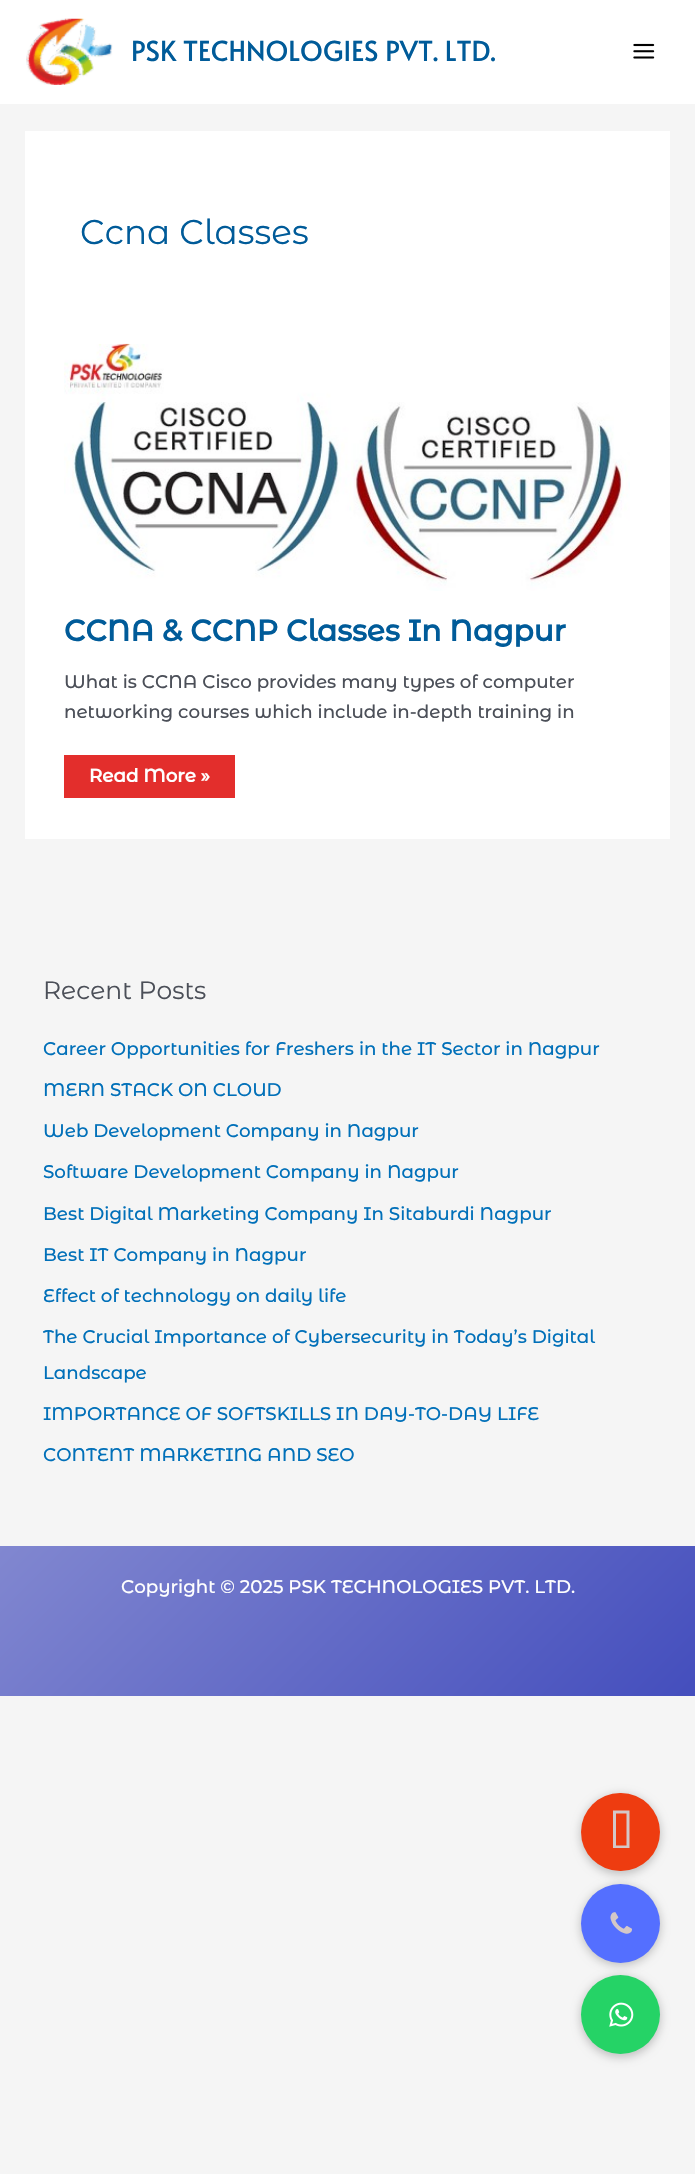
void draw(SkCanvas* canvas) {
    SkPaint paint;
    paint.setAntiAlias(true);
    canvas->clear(0xFFF5F5F5);
    paint.setColor(0xFFFFFFFF);
    canvas->drawRect(SkRect::MakeXYWH(0, 0, 695, 104), paint);
    canvas->drawImageRect(SkImages::DeferredFromEncodedData(SkData::MakeFromFileName("img1.png")), SkRect::MakeXYWH(26, 18, 87, 67), SkSamplingOptions());
    SkFont font1(fontMgr->matchFamilyStyle("Alata", SkFontStyle::Normal()), 27.4f);
    font1.setSubpixel(true);
    paint.setColor(0xFF005B99);
    canvas->drawString("PSK TECHNOLOGIES PVT. LTD.", 131, 61, font1, paint);
    canvas->drawImageRect(SkImages::DeferredFromEncodedData(SkData::MakeFromFileName("img2.png")), SkRect::MakeXYWH(633, 43, 22, 16), SkSamplingOptions());
    paint.setColor(0xFFFFFFFF);
    canvas->drawRect(SkRect::MakeXYWH(25, 131, 645, 708), paint);
    SkFont font2(fontMgr->matchFamilyStyle("Montserrat Alternates", SkFontStyle::Normal()), 34.25f);
    font2.setSubpixel(true);
    paint.setColor(0xFF005B99);
    canvas->drawString("Ccna Classes", 80, 244, font2, paint);
    canvas->drawImageRect(SkImages::DeferredFromEncodedData(SkData::MakeFromFileName("img3.png")), SkRect::MakeXYWH(64, 343, 566, 248), SkSamplingOptions());
    SkFont font3(fontMgr->matchFamilyStyle("Montserrat Alternates", SkFontStyle::Bold()), 29.6f);
    font3.setSubpixel(true);
    canvas->drawString("CCNA & CCNP Classes In Nagpur", 64, 641, font3, paint);
    SkFont font4(fontMgr->matchFamilyStyle("Montserrat Alternates", SkFontStyle(500, SkFontStyle::kNormal_Width, SkFontStyle::kUpright_Slant)), 18.25f);
    font4.setSubpixel(true);
    paint.setColor(0xFF4B4F58);
    canvas->drawString("What is CCNA Cisco provides many types of computer", 64, 688, font4, paint);
    canvas->drawString("networking courses which include in-depth training in", 64, 718, font4, paint);
    paint.setColor(0xFFE32E2C);
    canvas->drawRect(SkRect::MakeXYWH(64, 755, 171, 43), paint);
    SkFont font5(fontMgr->matchFamilyStyle("Montserrat Alternates", SkFontStyle::Bold()), 18.25f);
    font5.setSubpixel(true);
    paint.setColor(0xFFFFFFFF);
    canvas->drawString("Read More »", 89, 782, font5, paint);
    SkFont font6(fontMgr->matchFamilyStyle("Montserrat Alternates", SkFontStyle::Normal()), 25);
    font6.setSubpixel(true);
    paint.setColor(0xFF4B4F58);
    canvas->drawString("Recent Posts", 43, 999, font6, paint);
    paint.setColor(0xFF0170B9);
    canvas->drawString("Career Opportunities for Freshers in the IT Sector in Nagpur", 43, 1055, font4, paint);
    canvas->drawString("MERN STACK ON CLOUD", 43, 1096, font4, paint);
    canvas->drawString("Web Development Company in Nagpur", 43, 1137, font4, paint);
    canvas->drawString("Software Development Company in Nagpur", 43, 1178, font4, paint);
    canvas->drawString("Best Digital Marketing Company In Sitaburdi Nagpur", 43, 1220, font4, paint);
    canvas->drawString("Best IT Company in Nagpur", 43, 1261, font4, paint);
    canvas->drawString("Effect of technology on daily life", 43, 1302, font4, paint);
    canvas->drawString("The Crucial Importance of Cybersecurity in Today’s Digital", 43, 1343, font4, paint);
    canvas->drawString("Landscape", 43, 1379, font4, paint);
    canvas->drawString("IMPORTANCE OF SOFTSKILLS IN DAY-TO-DAY LIFE", 43, 1420, font4, paint);
    canvas->drawString("CONTENT MARKETING AND SEO", 43, 1461, font4, paint);
    {
        const SkColor colors[] = {0xFF8187D0, 0xFF444EBD};
        const float stops[] = {0, 1};
        const SkPoint ends[] = {{136, 1410}, {559, 1833}};
        paint.setShader(SkGradientShader::MakeLinear(ends, colors, stops, 2, SkTileMode::kClamp));
        paint.setAlpha(255);
    }
    canvas->drawRect(SkRect::MakeXYWH(0, 1546, 695, 150), paint);
    paint.setShader(nullptr);
    paint.setColor(0xFFFFFFFF);
    canvas->drawString("Copyright © 2025 PSK TECHNOLOGIES PVT. LTD.", 121, 1593, font4, paint);
    paint.setColor(0x33000000);
    paint.setMaskFilter(SkMaskFilter::MakeBlur(kNormal_SkBlurStyle, 4));
    canvas->drawRoundRect(SkRect::MakeXYWH(580, 1976, 81, 82), 40.5f, 40.5f, paint);
    paint.setMaskFilter(nullptr);
    paint.setColor(0xFF25D366);
    canvas->drawCircle(620.5f, 2014.5f, 39.5f, paint);
    paint.setColor(0x33000000);
    paint.setMaskFilter(SkMaskFilter::MakeBlur(kNormal_SkBlurStyle, 4));
    canvas->drawRoundRect(SkRect::MakeXYWH(580, 1885, 81, 81), 40.5f, 40.5f, paint);
    paint.setMaskFilter(nullptr);
    paint.setColor(0xFF546FFF);
    canvas->drawCircle(620.5f, 1923.5f, 39.5f, paint);
    paint.setColor(0x33000000);
    paint.setMaskFilter(SkMaskFilter::MakeBlur(kNormal_SkBlurStyle, 4));
    canvas->drawRoundRect(SkRect::MakeXYWH(580, 1794, 81, 81), 40.5f, 40.5f, paint);
    paint.setMaskFilter(nullptr);
    paint.setColor(0xFFEE3C10);
    canvas->drawRoundRect(SkRect::MakeXYWH(581, 1793, 79, 78), 39, 39, paint);
    paint.setColor(0xFFD4C8C8);
    canvas->drawPath(SkPathBuilder().moveTo(616, 1845.5f).lineTo(626.5f, 1845.5f).lineTo(626.5f, 1813.5f).lineTo(616, 1813.5f).close().moveTo(613, 1848).lineTo(613, 1810.5f).lineTo(629.5f, 1810.5f).lineTo(629.5f, 1848).close().detach(), paint);
    canvas->drawImageRect(SkImages::DeferredFromEncodedData(SkData::MakeFromFileName("img4.png")), SkRect::MakeXYWH(610, 1912, 22, 22), SkSamplingOptions());
    canvas->drawImageRect(SkImages::DeferredFromEncodedData(SkData::MakeFromFileName("img5.png")), SkRect::MakeXYWH(609, 2002, 25, 25), SkSamplingOptions());
}
